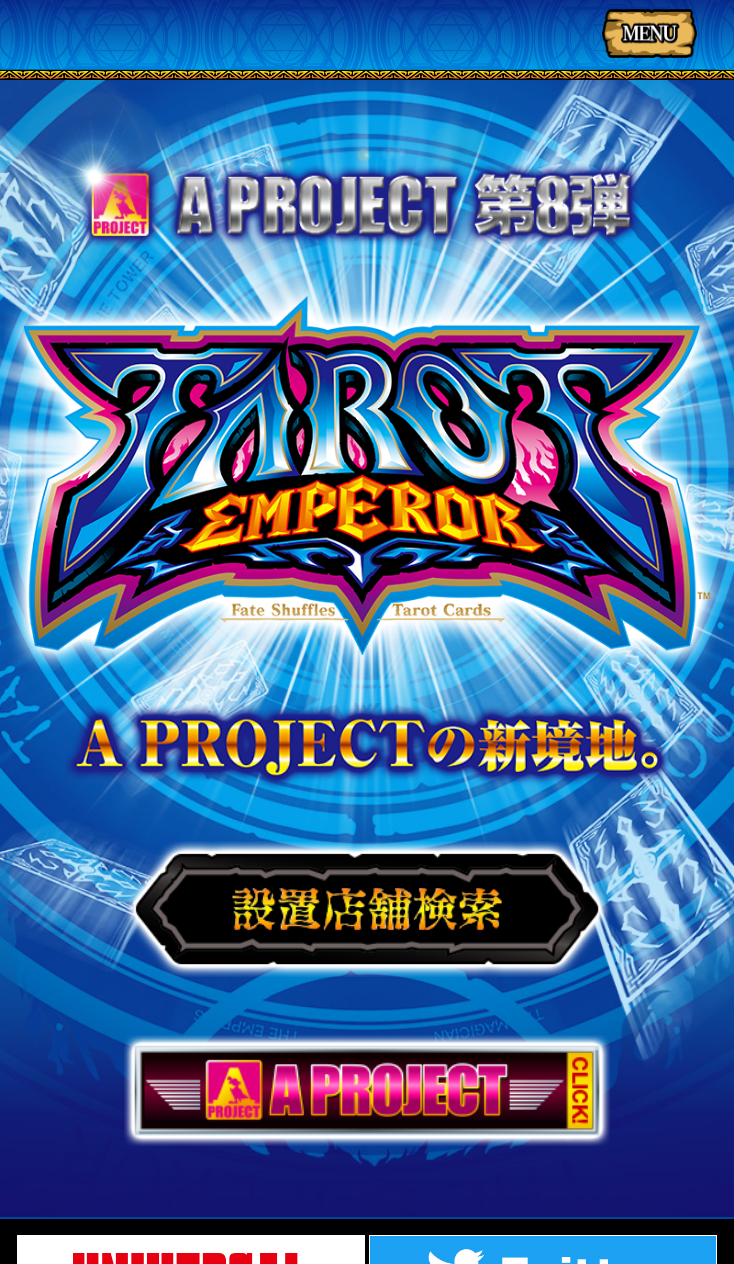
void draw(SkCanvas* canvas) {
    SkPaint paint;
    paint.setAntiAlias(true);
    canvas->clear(0xFF000000);
    canvas->drawImageRect(SkImages::DeferredFromEncodedData(SkData::MakeFromFileName("img1.png")), SkRect::MakeXYWH(0, 0, 734, 80), SkSamplingOptions());
    canvas->drawImageRect(SkImages::DeferredFromEncodedData(SkData::MakeFromFileName("img2.png")), SkRect::MakeXYWH(602, 9, 95, 49), SkSamplingOptions());
    canvas->drawImageRect(SkImages::DeferredFromEncodedData(SkData::MakeFromFileName("img3.png")), SkRect::MakeXYWH(0, 80, 734, 1137), SkSamplingOptions());
    canvas->drawImageRect(SkImages::DeferredFromEncodedData(SkData::MakeFromFileName("img4.png")), SkRect::MakeXYWH(0, 80, 641, 210), SkSamplingOptions());
    canvas->drawImageRect(SkImages::DeferredFromEncodedData(SkData::MakeFromFileName("img5.png")), SkRect::MakeXYWH(4, 279, 726, 394), SkSamplingOptions());
    canvas->drawImageRect(SkImages::DeferredFromEncodedData(SkData::MakeFromFileName("img6.png")), SkRect::MakeXYWH(65, 705, 606, 84), SkSamplingOptions());
    canvas->drawImageRect(SkImages::DeferredFromEncodedData(SkData::MakeFromFileName("img7.png")), SkRect::MakeXYWH(123, 841, 488, 136), SkSamplingOptions());
    canvas->drawImageRect(SkImages::DeferredFromEncodedData(SkData::MakeFromFileName("img8.png")), SkRect::MakeXYWH(124, 1035, 486, 111), SkSamplingOptions());
    paint.setColor(0xFF00449B);
    canvas->drawRect(SkRect::MakeXYWH(0, 1217, 734, 2), paint);
    canvas->drawImageRect(SkImages::DeferredFromEncodedData(SkData::MakeFromFileName("img9.png")), SkRect::MakeXYWH(17, 1235, 348, 29), SkSamplingOptions());
    canvas->drawImageRect(SkImages::DeferredFromEncodedData(SkData::MakeFromFileName("img10.png")), SkRect::MakeXYWH(369, 1235, 348, 29), SkSamplingOptions());
}
